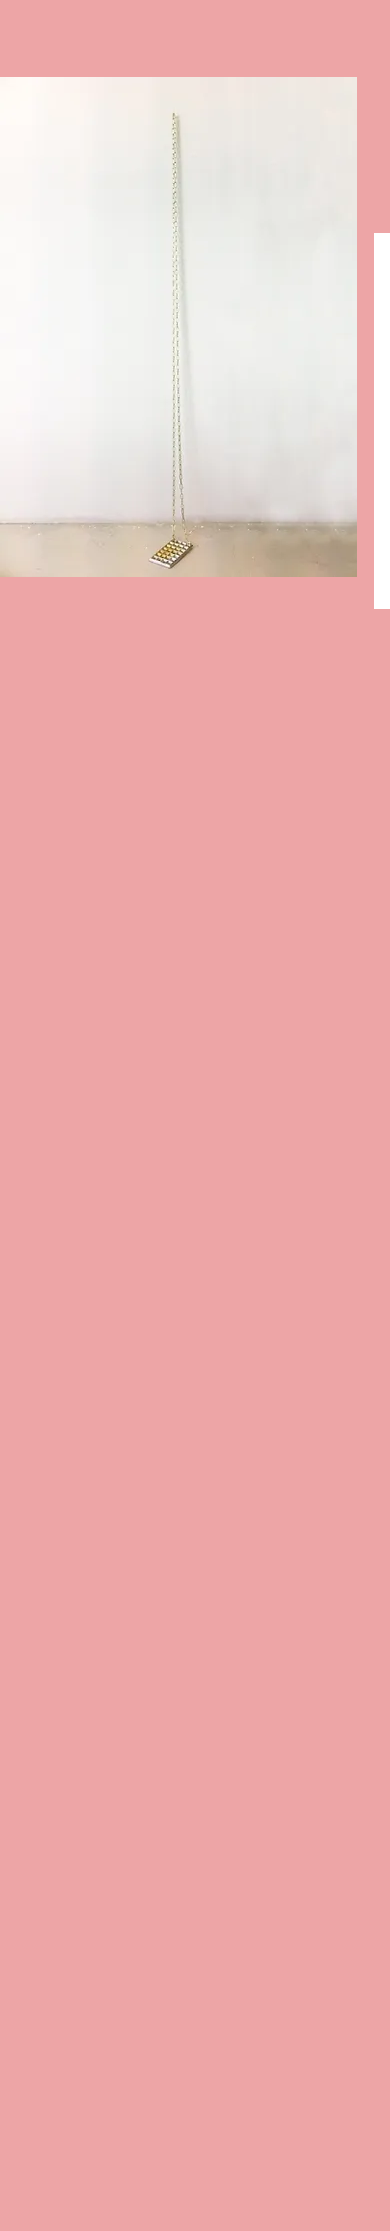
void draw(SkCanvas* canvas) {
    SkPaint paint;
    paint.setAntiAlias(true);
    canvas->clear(0xFFEDA5A6);
    canvas->drawImageRect(SkImages::DeferredFromEncodedData(SkData::MakeFromFileName("img1.png")), SkRect::MakeXYWH(0, 77, 357, 500), SkSamplingOptions());
    paint.setColor(0xFFFFFFFF);
    canvas->drawRect(SkRect::MakeXYWH(374, 233, 16, 376), paint);
}
